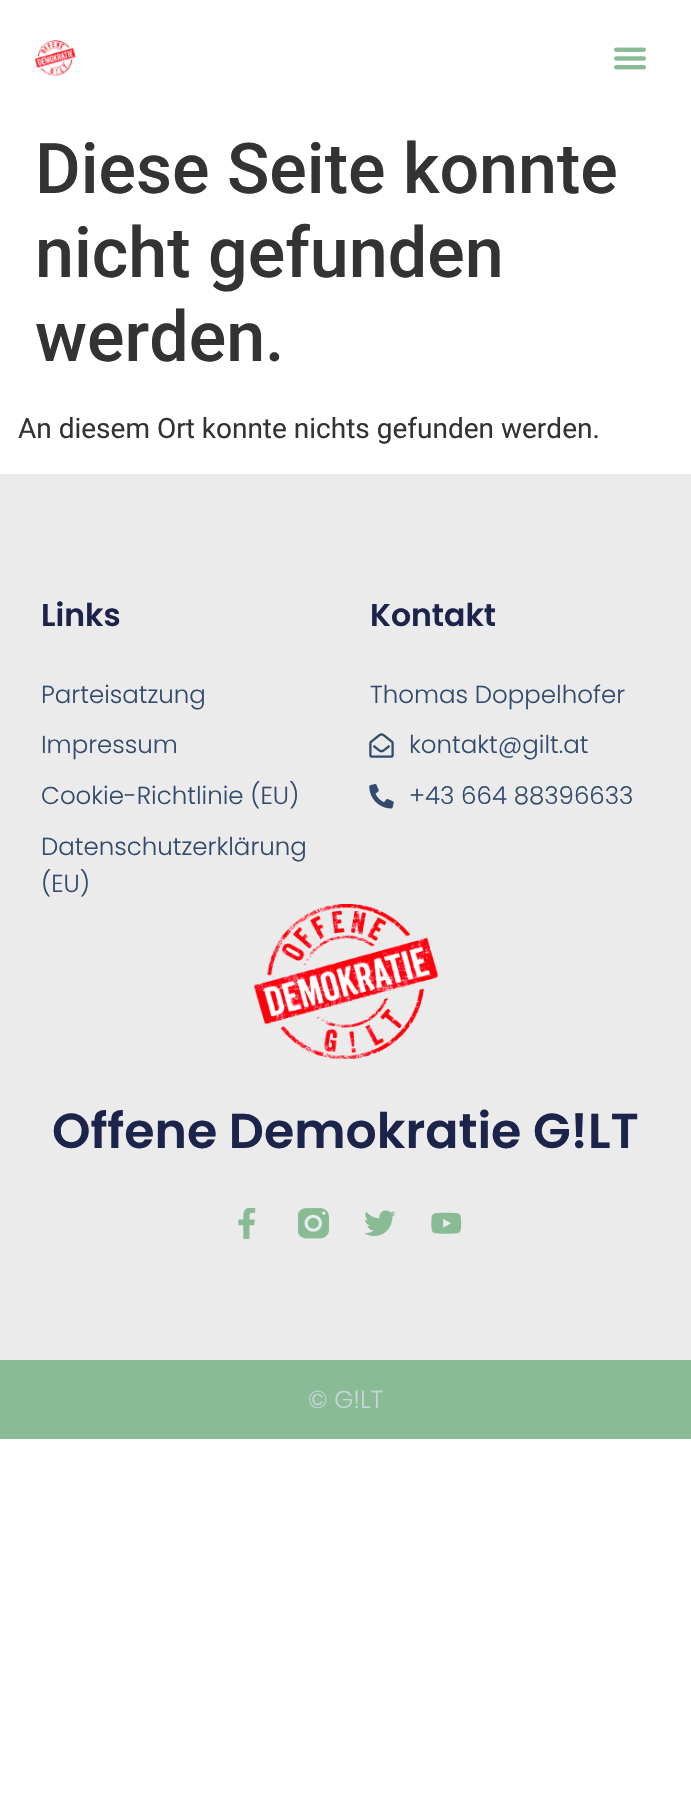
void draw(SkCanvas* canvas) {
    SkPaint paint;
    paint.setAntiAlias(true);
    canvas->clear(0xFFFFFFFF);
    canvas->drawImageRect(SkImages::DeferredFromEncodedData(SkData::MakeFromFileName("img1.png")), SkRect::MakeXYWH(35, 40, 41, 36), SkSamplingOptions());
    canvas->drawImageRect(SkImages::DeferredFromEncodedData(SkData::MakeFromFileName("img2.png")), SkRect::MakeXYWH(614, 47, 32, 23), SkSamplingOptions());
    SkFont font1(fontMgr->matchFamilyStyle("Roboto", SkFontStyle(500, SkFontStyle::kNormal_Width, SkFontStyle::kUpright_Slant)), 70);
    font1.setSubpixel(true);
    paint.setColor(0xFF333333);
    canvas->drawString("Diese Seite konnte", 35, 193, font1, paint);
    canvas->drawString("nicht gefunden", 35, 277, font1, paint);
    canvas->drawString("werden.", 35, 361, font1, paint);
    SkFont font2(fontMgr->matchFamilyStyle("Roboto", SkFontStyle::Normal()), 28);
    font2.setSubpixel(true);
    canvas->drawString("An diesem Ort konnte nichts gefunden werden.", 18, 438, font2, paint);
    paint.setColor(0xFFEBEBEB);
    canvas->drawRect(SkRect::MakeXYWH(0, 474, 691, 886), paint);
    SkFont font3(fontMgr->matchFamilyStyle("Poppins", SkFontStyle(600, SkFontStyle::kNormal_Width, SkFontStyle::kUpright_Slant)), 31.5f);
    font3.setSubpixel(true);
    paint.setColor(0xFF1C244B);
    canvas->drawString("Links", 41, 626, font3, paint);
    SkFont font4(fontMgr->matchFamilyStyle("Poppins", SkFontStyle(300, SkFontStyle::kNormal_Width, SkFontStyle::kUpright_Slant)), 24.5f);
    font4.setSubpixel(true);
    paint.setColor(0xFF324A6D);
    canvas->drawString("Parteisatzung", 41, 703, font4, paint);
    canvas->drawString("Impressum", 41, 753, font4, paint);
    canvas->drawString("Cookie-Richtlinie (EU)", 41, 804, font4, paint);
    canvas->drawString("Datenschutzerklärung", 41, 855, font4, paint);
    canvas->drawString("(EU)", 41, 892, font4, paint);
    paint.setColor(0xFF1C244B);
    canvas->drawString("Kontakt", 370, 626, font3, paint);
    paint.setColor(0xFF324A6D);
    canvas->drawString("Thomas Doppelhofer", 370, 703, font4, paint);
    canvas->drawImageRect(SkImages::DeferredFromEncodedData(SkData::MakeFromFileName("img3.png")), SkRect::MakeXYWH(369, 733, 25, 25), SkSamplingOptions());
    canvas->drawString("kontakt@gilt.at", 409, 753, font4, paint);
    canvas->drawImageRect(SkImages::DeferredFromEncodedData(SkData::MakeFromFileName("img4.png")), SkRect::MakeXYWH(369, 784, 25, 25), SkSamplingOptions());
    canvas->drawString("+43 664 88396633", 409, 804, font4, paint);
    canvas->drawImageRect(SkImages::DeferredFromEncodedData(SkData::MakeFromFileName("img5.png")), SkRect::MakeXYWH(253, 904, 185, 155), SkSamplingOptions());
    SkFont font5(fontMgr->matchFamilyStyle("Poppins", SkFontStyle(600, SkFontStyle::kNormal_Width, SkFontStyle::kUpright_Slant)), 49);
    font5.setSubpixel(true);
    paint.setColor(0xFF1C244B);
    canvas->drawString("Offene Demokratie G!LT", 52, 1148, font5, paint);
    canvas->drawImageRect(SkImages::DeferredFromEncodedData(SkData::MakeFromFileName("img6.png")), SkRect::MakeXYWH(238, 1208, 18, 31), SkSamplingOptions());
    canvas->drawImageRect(SkImages::DeferredFromEncodedData(SkData::MakeFromFileName("img7.png")), SkRect::MakeXYWH(298, 1208, 31, 31), SkSamplingOptions());
    canvas->drawImageRect(SkImages::DeferredFromEncodedData(SkData::MakeFromFileName("img8.png")), SkRect::MakeXYWH(364, 1210, 32, 26), SkSamplingOptions());
    canvas->drawImageRect(SkImages::DeferredFromEncodedData(SkData::MakeFromFileName("img9.png")), SkRect::MakeXYWH(431, 1212, 31, 22), SkSamplingOptions());
    paint.setColor(0xFF89BC94);
    canvas->drawRect(SkRect::MakeXYWH(0, 1360, 691, 79), paint);
    paint.setColor(0xFFC8D5DC);
    canvas->drawString("© G!LT", 308, 1408, font4, paint);
}
